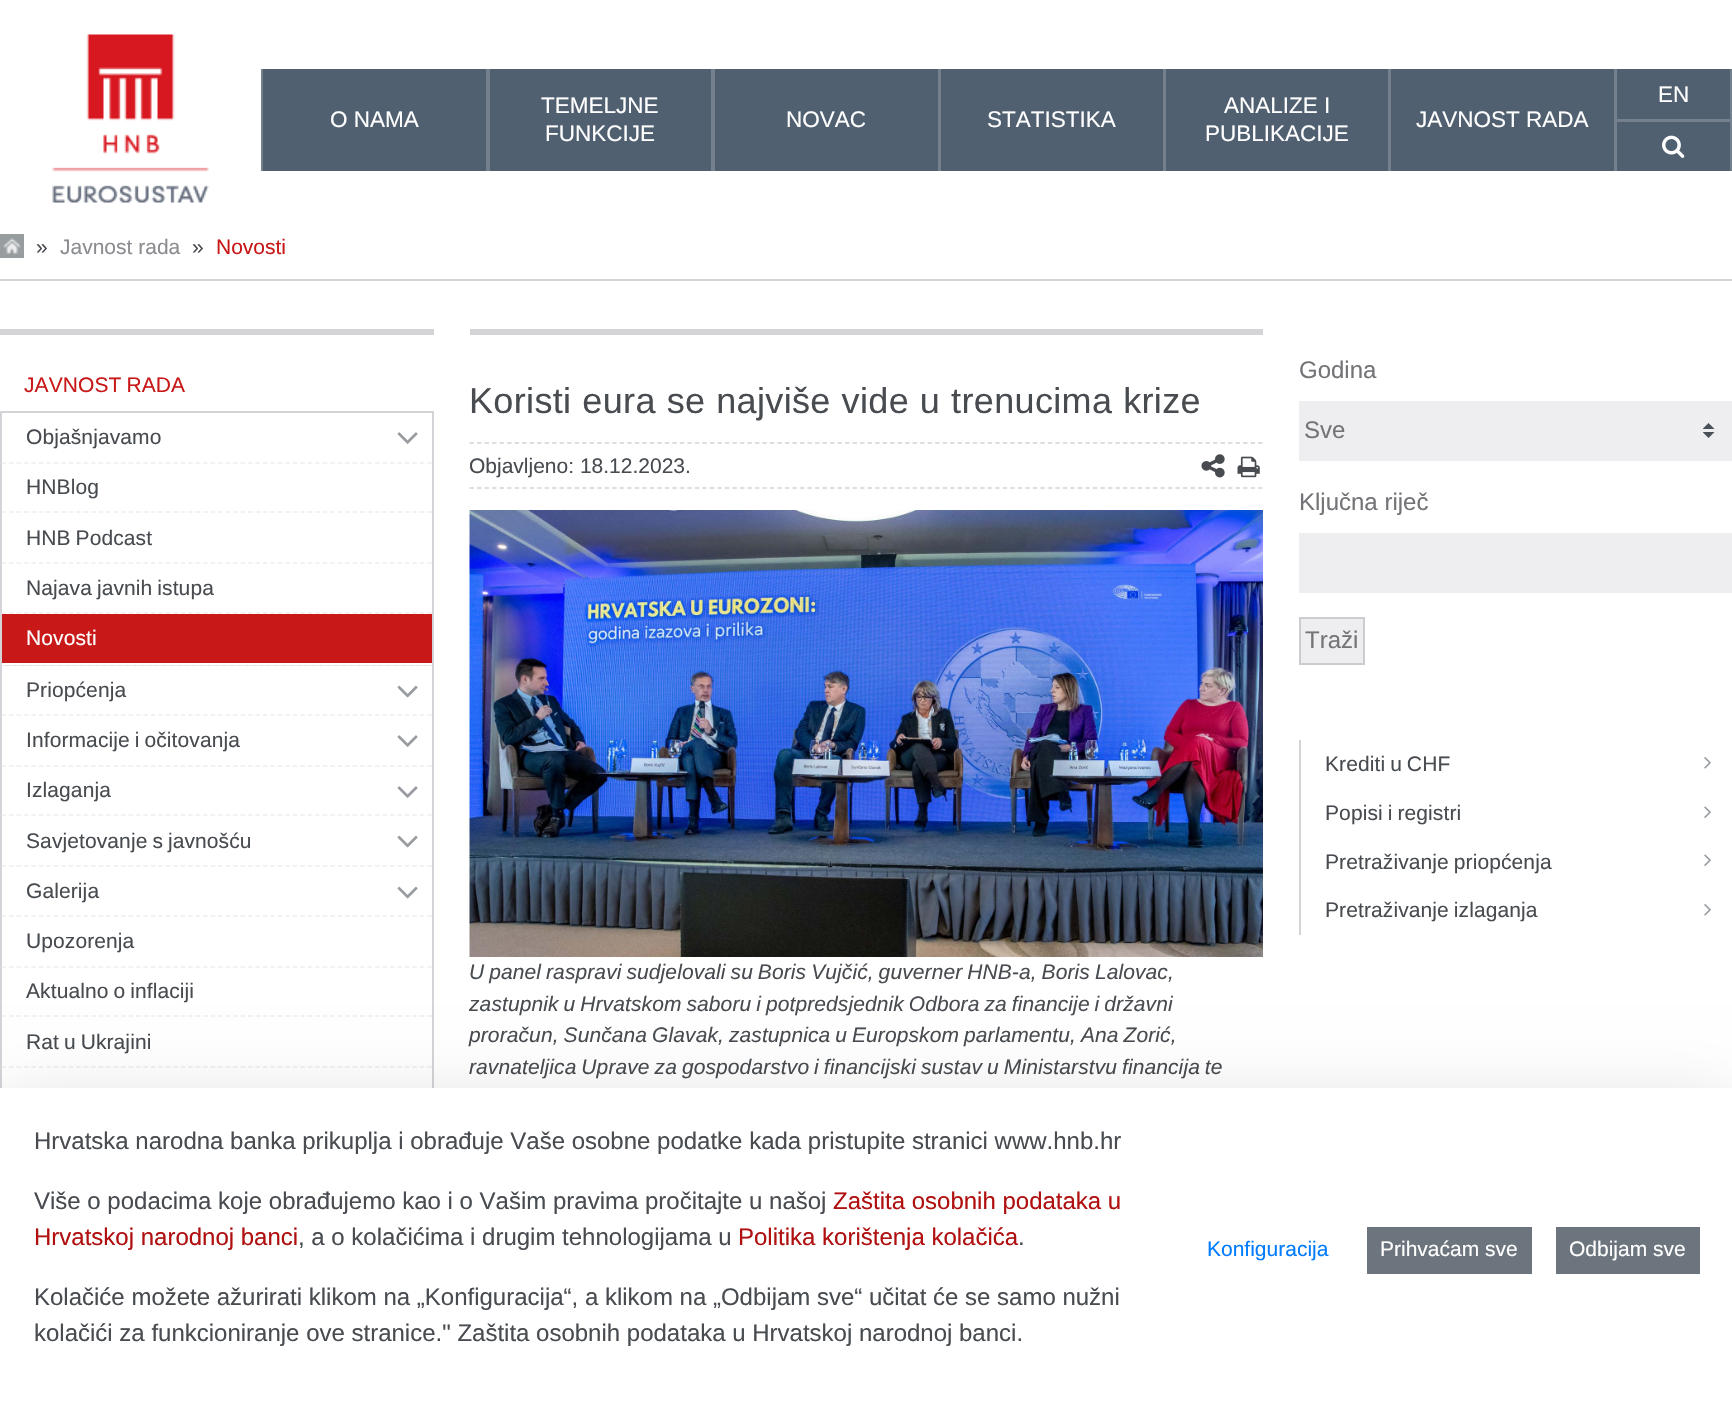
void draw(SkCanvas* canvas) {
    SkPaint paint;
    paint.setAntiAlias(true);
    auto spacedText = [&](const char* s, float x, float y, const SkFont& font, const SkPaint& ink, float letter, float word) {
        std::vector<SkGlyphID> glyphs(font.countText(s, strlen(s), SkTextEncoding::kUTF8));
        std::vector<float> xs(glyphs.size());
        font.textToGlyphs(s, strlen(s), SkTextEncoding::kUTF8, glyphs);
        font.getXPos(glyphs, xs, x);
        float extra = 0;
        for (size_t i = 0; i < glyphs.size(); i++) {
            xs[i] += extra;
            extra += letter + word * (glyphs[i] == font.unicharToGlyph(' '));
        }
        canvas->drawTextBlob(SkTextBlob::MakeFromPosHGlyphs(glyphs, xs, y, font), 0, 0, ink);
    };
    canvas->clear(0xFFFFFFFF);
    paint.setColor(0xFF506070);
    canvas->drawRect(SkRect::MakeXYWH(263, 69, 1351, 102), paint);
    canvas->drawImageRect(SkImages::DeferredFromEncodedData(SkData::MakeFromFileName("img1.png")), SkRect::MakeXYWH(52, 34, 157, 169), SkSamplingOptions());
    paint.setColor(0xFF74808C);
    canvas->drawRect(SkRect::MakeXYWH(1730, 69, 2, 102), paint);
    canvas->drawRect(SkRect::MakeXYWH(1614, 69, 3, 102), paint);
    paint.setColor(0xFF506070);
    canvas->drawRect(SkRect::MakeXYWH(1617, 69, 113, 50), paint);
    paint.setColor(0xFF74808C);
    canvas->drawRect(SkRect::MakeXYWH(1617, 119, 113, 3), paint);
    SkFont font1(fontMgr->matchFamilyStyle("Liberation Sans", SkFontStyle::Normal()), 22.5f);
    font1.setSubpixel(true);
    paint.setColor(0xFFFFFFFF);
    canvas->drawString("EN", 1658, 102, font1, paint);
    paint.setColor(0xFF506070);
    canvas->drawRect(SkRect::MakeXYWH(1617, 122, 113, 49), paint);
    canvas->drawImageRect(SkImages::DeferredFromEncodedData(SkData::MakeFromFileName("img2.png")), SkRect::MakeXYWH(1662, 135, 23, 23), SkSamplingOptions());
    paint.setColor(0xFF74808C);
    canvas->drawRect(SkRect::MakeXYWH(486, 69, 4, 102), paint);
    canvas->drawRect(SkRect::MakeXYWH(261, 69, 2, 102), paint);
    paint.setColor(0xFFFFFFFF);
    canvas->drawString("O NAMA", 330, 127, font1, paint);
    paint.setColor(0xFF74808C);
    canvas->drawRect(SkRect::MakeXYWH(711, 69, 4, 102), paint);
    paint.setColor(0xFFFFFFFF);
    canvas->drawString("TEMELJNE", 541, 113, font1, paint);
    canvas->drawString("FUNKCIJE", 545, 141, font1, paint);
    paint.setColor(0xFF74808C);
    canvas->drawRect(SkRect::MakeXYWH(938, 69, 3, 102), paint);
    paint.setColor(0xFFFFFFFF);
    canvas->drawString("NOVAC", 786, 127, font1, paint);
    paint.setColor(0xFF74808C);
    canvas->drawRect(SkRect::MakeXYWH(1163, 69, 3, 102), paint);
    paint.setColor(0xFFFFFFFF);
    canvas->drawString("STATISTIKA", 987, 127, font1, paint);
    paint.setColor(0xFF74808C);
    canvas->drawRect(SkRect::MakeXYWH(1388, 69, 3, 102), paint);
    paint.setColor(0xFFFFFFFF);
    canvas->drawString("ANALIZE I", 1224, 113, font1, paint);
    canvas->drawString("PUBLIKACIJE", 1205, 141, font1, paint);
    canvas->drawString("JAVNOST RADA", 1416, 127, font1, paint);
    paint.setColor(0xFFD4D4D8);
    canvas->drawRect(SkRect::MakeXYWH(0, 279, 1732, 2), paint);
    canvas->drawImageRect(SkImages::DeferredFromEncodedData(SkData::MakeFromFileName("img3.png")), SkRect::MakeXYWH(0, 234, 24, 24), SkSamplingOptions());
    SkFont font2(fontMgr->matchFamilyStyle("Liberation Sans", SkFontStyle::Normal()), 21);
    font2.setSubpixel(true);
    paint.setColor(0xFF484C50);
    canvas->drawString("»", 36, 254, font2, paint);
    paint.setColor(0xFF8A8C90);
    canvas->drawString("Javnost rada", 60, 254, font2, paint);
    paint.setColor(0xFF484C50);
    canvas->drawString("»", 192, 254, font2, paint);
    paint.setColor(0xFFC81818);
    canvas->drawString("Novosti", 216, 254, font2, paint);
    paint.setColor(0xFFD4D4D8);
    canvas->drawRect(SkRect::MakeXYWH(0, 329, 434, 6), paint);
    paint.setColor(0xFFC81818);
    spacedText("JAVNOST RADA", 24, 392, font2, paint, 0.1f, -1);
    paint.setStyle(SkPaint::kStroke_Style);
    paint.setStrokeWidth(2);
    paint.setColor(0xFFD4D4D8);
    canvas->drawRect(SkRect::MakeXYWH(1, 412, 432, 856), paint);
    paint.setStrokeWidth(1.5f);
    paint.setColor(0xFFEEEEF0);
    paint.setPathEffect(SkDashPathEffect::Make({{4.5f, 2.97f}}, 0));
    canvas->drawPath(SkPathBuilder().moveTo(1.5f, 463).lineTo(432, 463).detach(), paint);
    paint.setPathEffect(nullptr);
    paint.setStyle(SkPaint::kFill_Style);
    paint.setColor(0xFF484C50);
    spacedText("Objašnjavamo", 26, 444, font2, paint, 0.1f, 0);
    canvas->drawImageRect(SkImages::DeferredFromEncodedData(SkData::MakeFromFileName("img4.png")), SkRect::MakeXYWH(397, 432, 21, 12), SkSamplingOptions());
    paint.setStyle(SkPaint::kStroke_Style);
    paint.setColor(0xFFEEEEF0);
    paint.setPathEffect(SkDashPathEffect::Make({{4.5f, 2.97f}}, 0));
    canvas->drawPath(SkPathBuilder().moveTo(1.5f, 512).lineTo(432, 512).detach(), paint);
    paint.setPathEffect(nullptr);
    paint.setStyle(SkPaint::kFill_Style);
    paint.setColor(0xFF484C50);
    spacedText("HNBlog", 26, 494, font2, paint, 0.1f, 0);
    paint.setStyle(SkPaint::kStroke_Style);
    paint.setColor(0xFFEEEEF0);
    paint.setPathEffect(SkDashPathEffect::Make({{4.5f, 2.97f}}, 0));
    canvas->drawPath(SkPathBuilder().moveTo(1.5f, 563).lineTo(432, 563).detach(), paint);
    paint.setPathEffect(nullptr);
    paint.setStyle(SkPaint::kFill_Style);
    paint.setColor(0xFF484C50);
    spacedText("HNB Podcast", 26, 545, font2, paint, 0.1f, -1);
    paint.setStyle(SkPaint::kStroke_Style);
    paint.setColor(0xFFEEEEF0);
    paint.setPathEffect(SkDashPathEffect::Make({{4.5f, 2.97f}}, 0));
    canvas->drawPath(SkPathBuilder().moveTo(1.5f, 613).lineTo(432, 613).detach(), paint);
    paint.setPathEffect(nullptr);
    paint.setStyle(SkPaint::kFill_Style);
    paint.setColor(0xFF484C50);
    spacedText("Najava javnih istupa", 26, 595, font2, paint, 0.1f, -1);
    paint.setColor(0xFFDCDCE0);
    canvas->drawRect(SkRect::MakeXYWH(2, 665, 430, 1), paint);
    paint.setStyle(SkPaint::kStroke_Style);
    paint.setColor(0xFFEEEEF0);
    paint.setPathEffect(SkDashPathEffect::Make({{4.5f, 2.97f}}, 0));
    canvas->drawPath(SkPathBuilder().moveTo(1.5f, 665).lineTo(432, 665).detach(), paint);
    paint.setPathEffect(nullptr);
    paint.setStyle(SkPaint::kFill_Style);
    paint.setColor(0xFFC81818);
    canvas->drawRect(SkRect::MakeXYWH(2, 614, 430, 49), paint);
    paint.setColor(0xFFFFFFFF);
    canvas->drawRect(SkRect::MakeXYWH(2, 664, 430, 1), paint);
    spacedText("Novosti", 26, 645, font2, paint, 0.1f, 0);
    paint.setStyle(SkPaint::kStroke_Style);
    paint.setColor(0xFFEEEEF0);
    paint.setPathEffect(SkDashPathEffect::Make({{4.5f, 2.97f}}, 0));
    canvas->drawPath(SkPathBuilder().moveTo(1.5f, 715).lineTo(432, 715).detach(), paint);
    paint.setPathEffect(nullptr);
    paint.setStyle(SkPaint::kFill_Style);
    paint.setColor(0xFF484C50);
    spacedText("Priopćenja", 26, 697, font2, paint, 0.1f, 0);
    canvas->drawImageRect(SkImages::DeferredFromEncodedData(SkData::MakeFromFileName("img5.png")), SkRect::MakeXYWH(397, 685, 21, 13), SkSamplingOptions());
    paint.setStyle(SkPaint::kStroke_Style);
    paint.setColor(0xFFEEEEF0);
    paint.setPathEffect(SkDashPathEffect::Make({{4.5f, 2.97f}}, 0));
    canvas->drawPath(SkPathBuilder().moveTo(1.5f, 766).lineTo(432, 766).detach(), paint);
    paint.setPathEffect(nullptr);
    paint.setStyle(SkPaint::kFill_Style);
    paint.setColor(0xFF484C50);
    spacedText("Informacije i očitovanja", 26, 747, font2, paint, 0.1f, -1);
    canvas->drawImageRect(SkImages::DeferredFromEncodedData(SkData::MakeFromFileName("img4.png")), SkRect::MakeXYWH(397, 735, 21, 12), SkSamplingOptions());
    paint.setStyle(SkPaint::kStroke_Style);
    paint.setColor(0xFFEEEEF0);
    paint.setPathEffect(SkDashPathEffect::Make({{4.5f, 2.97f}}, 0));
    canvas->drawPath(SkPathBuilder().moveTo(1.5f, 815).lineTo(432, 815).detach(), paint);
    paint.setPathEffect(nullptr);
    paint.setStyle(SkPaint::kFill_Style);
    paint.setColor(0xFF484C50);
    spacedText("Izlaganja", 26, 797, font2, paint, 0.1f, 0);
    canvas->drawImageRect(SkImages::DeferredFromEncodedData(SkData::MakeFromFileName("img4.png")), SkRect::MakeXYWH(397, 786, 21, 12), SkSamplingOptions());
    paint.setStyle(SkPaint::kStroke_Style);
    paint.setColor(0xFFEEEEF0);
    paint.setPathEffect(SkDashPathEffect::Make({{4.5f, 2.97f}}, 0));
    canvas->drawPath(SkPathBuilder().moveTo(1.5f, 866).lineTo(432, 866).detach(), paint);
    paint.setPathEffect(nullptr);
    paint.setStyle(SkPaint::kFill_Style);
    paint.setColor(0xFF484C50);
    spacedText("Savjetovanje s javnošću", 26, 848, font2, paint, 0.1f, -1);
    canvas->drawImageRect(SkImages::DeferredFromEncodedData(SkData::MakeFromFileName("img5.png")), SkRect::MakeXYWH(397, 835, 21, 13), SkSamplingOptions());
    paint.setStyle(SkPaint::kStroke_Style);
    paint.setColor(0xFFEEEEF0);
    paint.setPathEffect(SkDashPathEffect::Make({{4.5f, 2.97f}}, 0));
    canvas->drawPath(SkPathBuilder().moveTo(1.5f, 916).lineTo(432, 916).detach(), paint);
    paint.setPathEffect(nullptr);
    paint.setStyle(SkPaint::kFill_Style);
    paint.setColor(0xFF484C50);
    spacedText("Galerija", 26, 898, font2, paint, 0.1f, 0);
    canvas->drawImageRect(SkImages::DeferredFromEncodedData(SkData::MakeFromFileName("img5.png")), SkRect::MakeXYWH(397, 886, 21, 13), SkSamplingOptions());
    paint.setStyle(SkPaint::kStroke_Style);
    paint.setColor(0xFFEEEEF0);
    paint.setPathEffect(SkDashPathEffect::Make({{4.5f, 2.97f}}, 0));
    canvas->drawPath(SkPathBuilder().moveTo(1.5f, 967).lineTo(432, 967).detach(), paint);
    paint.setPathEffect(nullptr);
    paint.setStyle(SkPaint::kFill_Style);
    paint.setColor(0xFF484C50);
    spacedText("Upozorenja", 26, 948, font2, paint, 0.1f, 0);
    paint.setStyle(SkPaint::kStroke_Style);
    paint.setColor(0xFFEEEEF0);
    paint.setPathEffect(SkDashPathEffect::Make({{4.5f, 2.97f}}, 0));
    canvas->drawPath(SkPathBuilder().moveTo(1.5f, 1016).lineTo(432, 1016).detach(), paint);
    paint.setPathEffect(nullptr);
    paint.setStyle(SkPaint::kFill_Style);
    paint.setColor(0xFF484C50);
    spacedText("Aktualno o inflaciji", 26, 998, font2, paint, 0.1f, -1);
    paint.setStyle(SkPaint::kStroke_Style);
    paint.setColor(0xFFEEEEF0);
    paint.setPathEffect(SkDashPathEffect::Make({{4.5f, 2.97f}}, 0));
    canvas->drawPath(SkPathBuilder().moveTo(1.5f, 1067).lineTo(432, 1067).detach(), paint);
    paint.setPathEffect(nullptr);
    paint.setStyle(SkPaint::kFill_Style);
    paint.setColor(0xFF484C50);
    spacedText("Rat u Ukrajini", 26, 1049, font2, paint, 0.1f, -1);
    paint.setColor(0xFFD4D4D8);
    canvas->drawRect(SkRect::MakeXYWH(470, 329, 793, 6), paint);
    SkFont font3(fontMgr->matchFamilyStyle("Liberation Sans", SkFontStyle::Normal()), 36);
    font3.setSubpixel(true);
    paint.setColor(0xFF484C50);
    spacedText("Koristi eura se najviše vide u trenucima krize", 469, 413, font3, paint, 0.35f, 0.5f);
    paint.setStyle(SkPaint::kStroke_Style);
    paint.setColor(0xFFD4D4D8);
    paint.setPathEffect(SkDashPathEffect::Make({{4.5f, 3.01f}}, 0));
    canvas->drawPath(SkPathBuilder().moveTo(469.5f, 443).lineTo(1263, 443).detach(), paint);
    paint.setPathEffect(nullptr);
    paint.setPathEffect(SkDashPathEffect::Make({{4.5f, 3.01f}}, 0));
    canvas->drawPath(SkPathBuilder().moveTo(469.5f, 488).lineTo(1263, 488).detach(), paint);
    paint.setPathEffect(nullptr);
    paint.setStyle(SkPaint::kFill_Style);
    paint.setColor(0xFF484C50);
    canvas->drawString("Objavljeno: 18.12.2023.", 469, 473, font2, paint);
    canvas->drawImageRect(SkImages::DeferredFromEncodedData(SkData::MakeFromFileName("img6.png")), SkRect::MakeXYWH(1201, 454, 24, 24), SkSamplingOptions());
    canvas->drawImageRect(SkImages::DeferredFromEncodedData(SkData::MakeFromFileName("img7.png")), SkRect::MakeXYWH(1237, 456, 23, 22), SkSamplingOptions());
    canvas->drawImageRect(SkImages::DeferredFromEncodedData(SkData::MakeFromFileName("img8.png")), SkRect::MakeXYWH(469, 510, 794, 447), SkSamplingOptions());
    SkFont font4(fontMgr->matchFamilyStyle("Liberation Sans", SkFontStyle::Italic()), 21);
    font4.setSubpixel(true);
    spacedText("U panel raspravi sudjelovali su Boris Vujčić, guverner HNB-a, Boris Lalovac,", 469, 979, font4, paint, 0.1f, -1);
    spacedText("zastupnik u Hrvatskom saboru i potpredsjednik Odbora za financije i državni", 469, 1011, font4, paint, 0.1f, -1);
    spacedText("proračun, Sunčana Glavak, zastupnica u Europskom parlamentu, Ana Zorić,", 469, 1042, font4, paint, 0.1f, -1);
    spacedText("ravnateljica Uprave za gospodarstvo i financijski sustav u Ministarstvu financija te", 469, 1074, font4, paint, 0.1f, -1);
    SkFont font5(fontMgr->matchFamilyStyle("Liberation Sans", SkFontStyle::Normal()), 24);
    font5.setSubpixel(true);
    paint.setColor(0xFF747478);
    canvas->drawString("Godina", 1299, 378, font5, paint);
    paint.setColor(0xFFEEEEF0);
    canvas->drawRect(SkRect::MakeXYWH(1299, 401, 433, 60), paint);
    canvas->drawImageRect(SkImages::DeferredFromEncodedData(SkData::MakeFromFileName("img9.png")), SkRect::MakeXYWH(1703, 423, 12, 15), SkSamplingOptions());
    paint.setColor(0xFF747478);
    canvas->drawString("Sve", 1304, 438, font5, paint);
    canvas->drawString("Ključna riječ", 1299, 510, font5, paint);
    paint.setColor(0xFFEEEEF0);
    canvas->drawRect(SkRect::MakeXYWH(1299, 533, 433, 60), paint);
    canvas->drawRect(SkRect::MakeXYWH(1300, 618, 64, 46), paint);
    paint.setStyle(SkPaint::kStroke_Style);
    paint.setStrokeWidth(2);
    paint.setColor(0xFFCCCCD0);
    canvas->drawRect(SkRect::MakeXYWH(1300, 618, 64, 46), paint);
    paint.setStyle(SkPaint::kFill_Style);
    paint.setColor(0xFF747478);
    canvas->drawString("Traži", 1305, 648, font5, paint);
    paint.setColor(0xFFD4D4D8);
    canvas->drawRect(SkRect::MakeXYWH(1299, 740, 2, 195), paint);
    paint.setColor(0xFF484C50);
    spacedText("Krediti u CHF", 1325, 771, font2, paint, 0.1f, -1);
    canvas->drawImageRect(SkImages::DeferredFromEncodedData(SkData::MakeFromFileName("img10.png")), SkRect::MakeXYWH(1704, 757, 7, 12), SkSamplingOptions());
    spacedText("Popisi i registri", 1325, 820, font2, paint, 0.1f, -1);
    canvas->drawImageRect(SkImages::DeferredFromEncodedData(SkData::MakeFromFileName("img11.png")), SkRect::MakeXYWH(1704, 806, 7, 12), SkSamplingOptions());
    spacedText("Pretraživanje priopćenja", 1325, 869, font2, paint, 0.1f, -1);
    canvas->drawImageRect(SkImages::DeferredFromEncodedData(SkData::MakeFromFileName("img11.png")), SkRect::MakeXYWH(1704, 854, 7, 12), SkSamplingOptions());
    spacedText("Pretraživanje izlaganja", 1325, 917, font2, paint, 0.1f, -1);
    canvas->drawImageRect(SkImages::DeferredFromEncodedData(SkData::MakeFromFileName("img10.png")), SkRect::MakeXYWH(1704, 904, 7, 12), SkSamplingOptions());
    paint.setColor(0x2E000000);
    paint.setMaskFilter(SkMaskFilter::MakeBlur(kNormal_SkBlurStyle, 36));
    canvas->drawRect(SkRect::MakeXYWH(0, 1112, 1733, 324), paint);
    paint.setMaskFilter(nullptr);
    paint.setColor(0xFFFFFFFF);
    canvas->drawRect(SkRect::MakeXYWH(0, 1088, 1732, 323), paint);
    paint.setColor(0xFF484C50);
    canvas->drawString("Hrvatska narodna banka prikuplja i obrađuje Vaše osobne podatke kada pristupite stranici www.hnb.hr", 34, 1149, font5, paint);
    canvas->drawString("Više o podacima koje obrađujemo kao i o Vašim pravima pročitajte u našoj", 34, 1209, font5, paint);
    paint.setColor(0xFFB01010);
    canvas->drawString("Zaštita osobnih podataka u", 833, 1209, font5, paint);
    canvas->drawString("Hrvatskoj narodnoj banci", 34, 1245, font5, paint);
    paint.setColor(0xFF484C50);
    canvas->drawString(", a o kolačićima i drugim tehnologijama u", 298, 1245, font5, paint);
    paint.setColor(0xFFB01010);
    canvas->drawString("Politika korištenja kolačića", 738, 1245, font5, paint);
    paint.setColor(0xFF484C50);
    canvas->drawString(".", 1018, 1245, font5, paint);
    canvas->drawString("Kolačiće možete ažurirati klikom na „Konfiguracija“, a klikom na „Odbijam sve“ učitat će se samo nužni", 34, 1305, font5, paint);
    canvas->drawString("kolačići za funkcioniranje ove stranice.\" Zaštita osobnih podataka u Hrvatskoj narodnoj banci.", 34, 1341, font5, paint);
    paint.setColor(0xFF007BFF);
    canvas->drawString("Konfiguracija", 1207, 1256, font2, paint);
    paint.setColor(0xFF6C757D);
    canvas->drawRect(SkRect::MakeXYWH(1367, 1227, 165, 47), paint);
    paint.setColor(0xFFFFFFFF);
    canvas->drawString("Prihvaćam sve", 1380, 1256, font2, paint);
    paint.setColor(0xFF6C757D);
    canvas->drawRect(SkRect::MakeXYWH(1556, 1227, 144, 47), paint);
    paint.setColor(0xFFFFFFFF);
    canvas->drawString("Odbijam sve", 1569, 1256, font2, paint);
}
